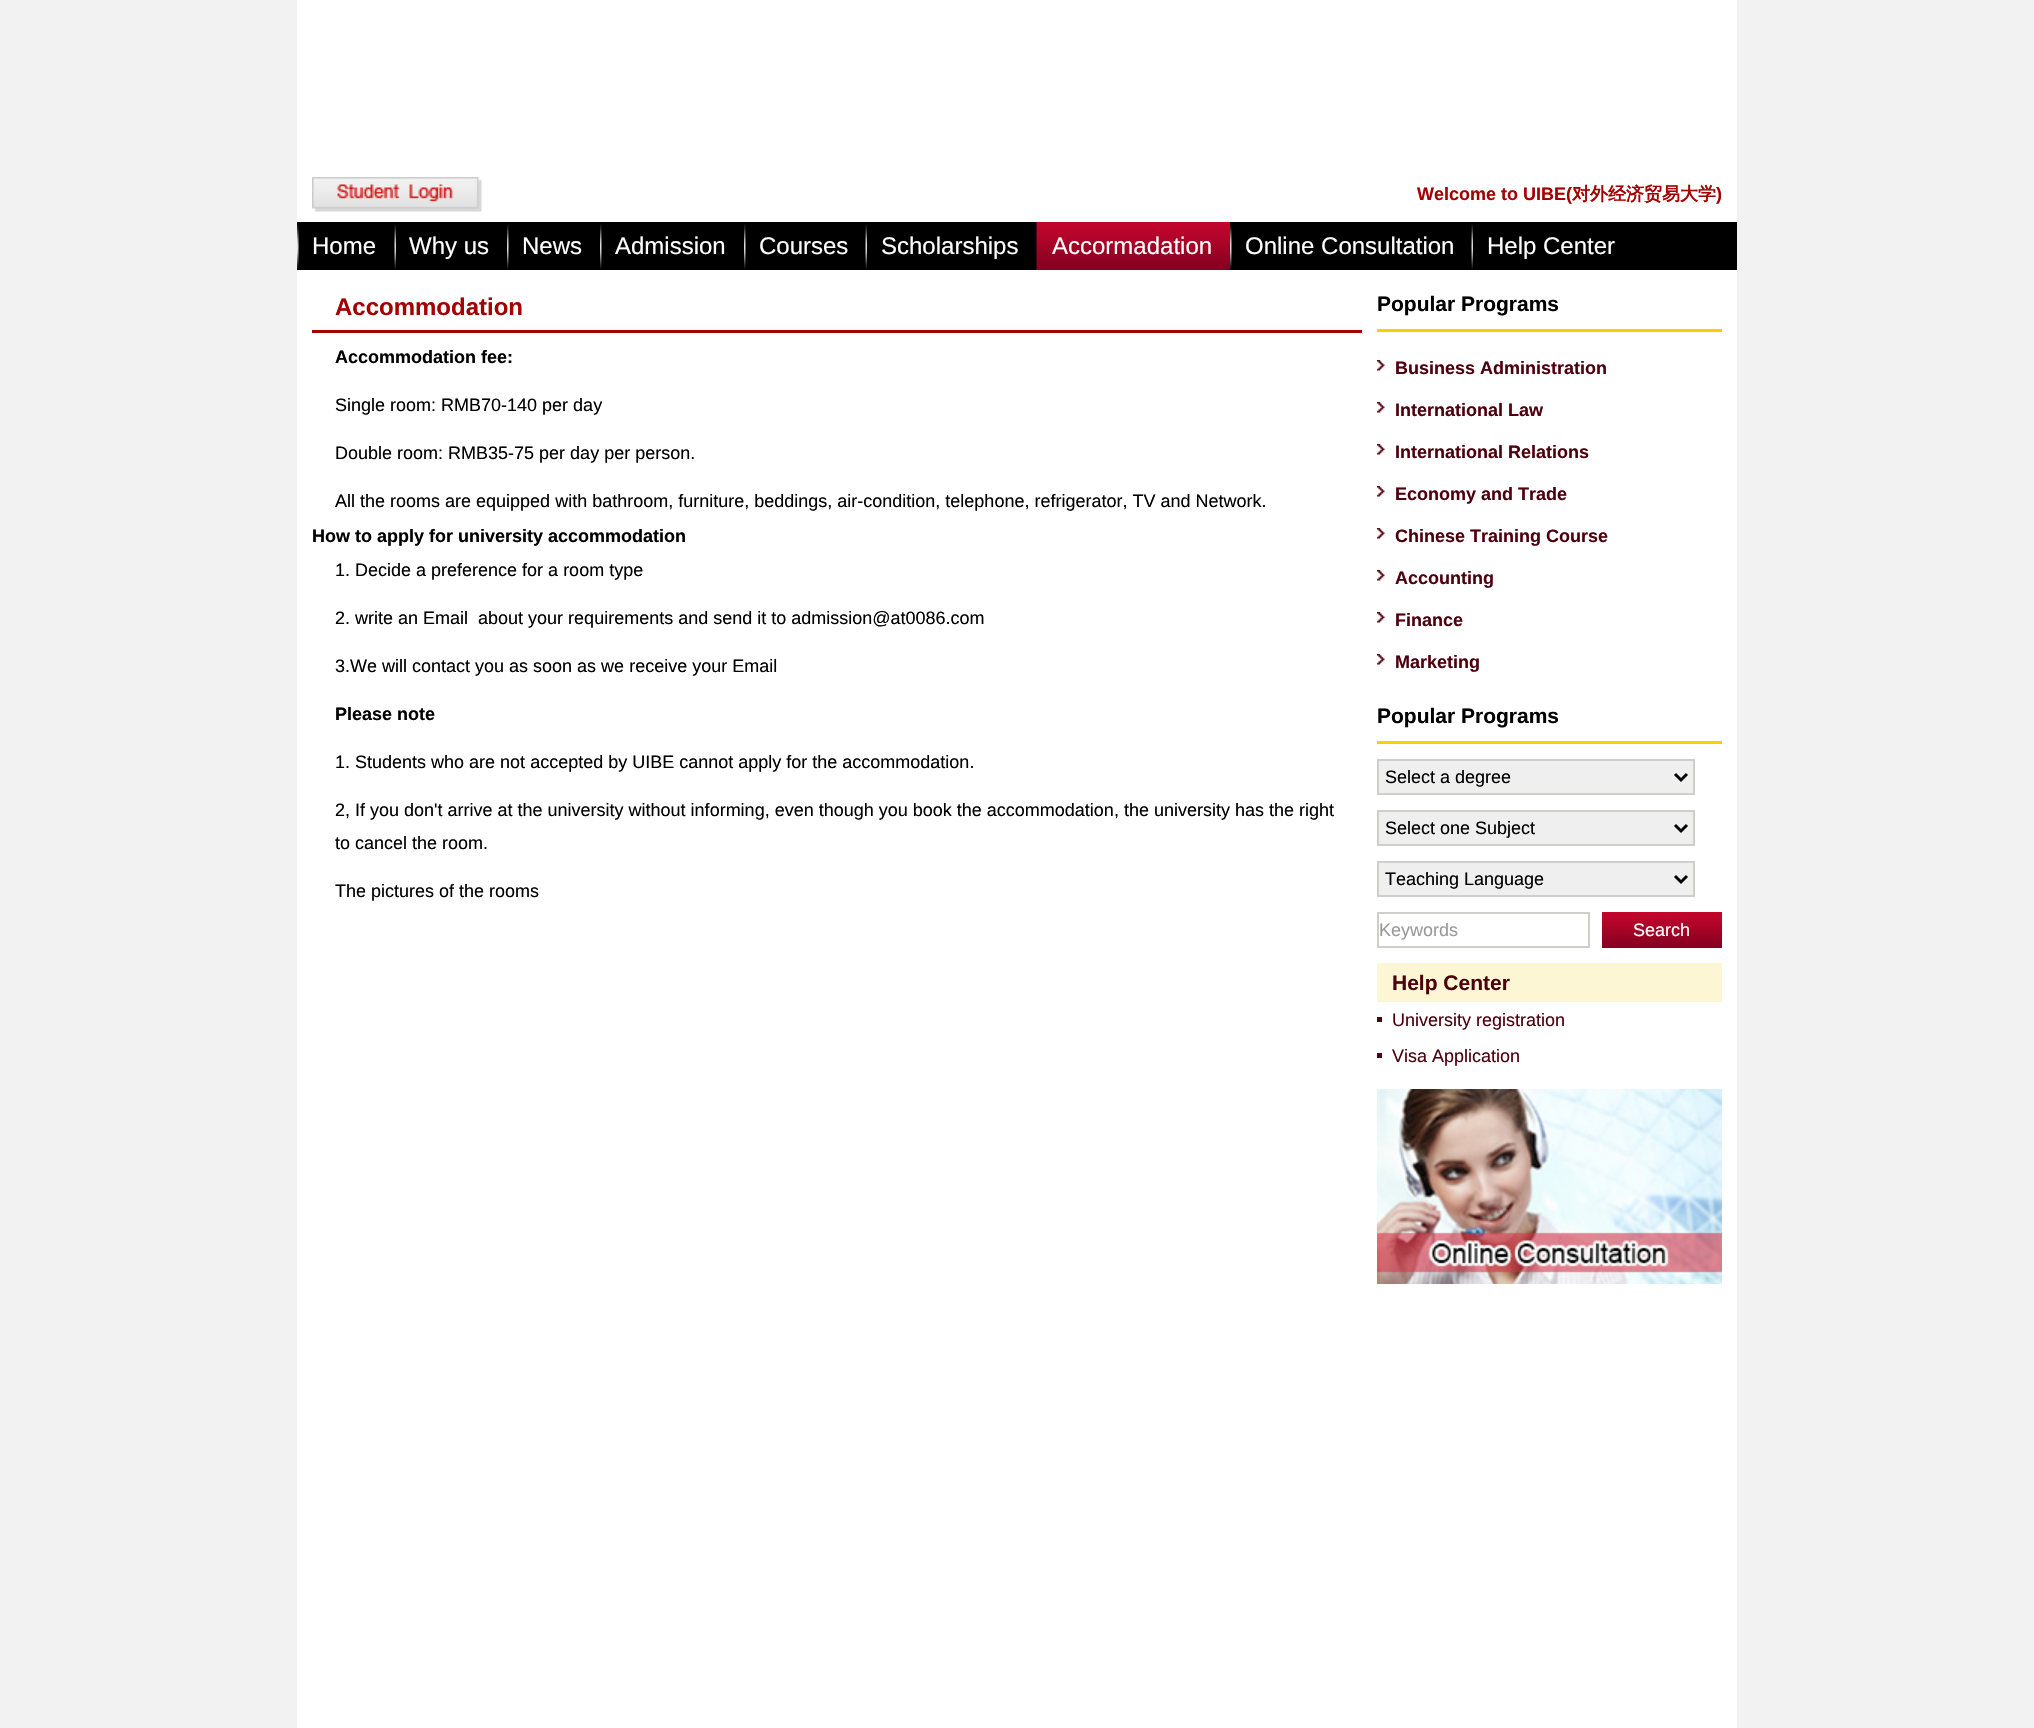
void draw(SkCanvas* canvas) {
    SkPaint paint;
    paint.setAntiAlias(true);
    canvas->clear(0xFFF2F2F2);
    paint.setColor(0xFFFFFFFF);
    canvas->drawRect(SkRect::MakeXYWH(297, 0, 1440, 1728), paint);
    canvas->drawImageRect(SkImages::DeferredFromEncodedData(SkData::MakeFromFileName("img1.png")), SkRect::MakeXYWH(312, 177, 170, 35), SkSamplingOptions());
    SkFont font1(fontMgr->matchFamilyStyle("Liberation Sans", SkFontStyle::Bold()), 18);
    font1.setSubpixel(true);
    paint.setColor(0xFFA30202);
    canvas->drawString("Welcome to UIBE(", 1417, 200, font1, paint);
    SkFont font2(fontMgr->matchFamilyStyle("WenQuanYi Zen Hei", SkFontStyle::Bold()), 18);
    font2.setSubpixel(true);
    canvas->drawString("对外经济贸易大学", 1572, 200, font2, paint);
    canvas->drawString(")", 1716, 200, font1, paint);
    paint.setColor(0xFF000000);
    canvas->drawRect(SkRect::MakeXYWH(297, 222, 1440, 48), paint);
    canvas->drawImageRect(SkImages::DeferredFromEncodedData(SkData::MakeFromFileName("img2.png")), SkRect::MakeXYWH(297, 224, 2, 46), SkSamplingOptions());
    SkFont font3(fontMgr->matchFamilyStyle("Liberation Sans", SkFontStyle::Normal()), 24);
    font3.setSubpixel(true);
    paint.setColor(0xFFFFFFFF);
    canvas->drawString("Home", 312, 254, font3, paint);
    canvas->drawImageRect(SkImages::DeferredFromEncodedData(SkData::MakeFromFileName("img3.png")), SkRect::MakeXYWH(394, 224, 2, 46), SkSamplingOptions());
    canvas->drawString("Why us", 409, 254, font3, paint);
    canvas->drawImageRect(SkImages::DeferredFromEncodedData(SkData::MakeFromFileName("img2.png")), SkRect::MakeXYWH(507, 224, 2, 46), SkSamplingOptions());
    canvas->drawString("News", 522, 254, font3, paint);
    canvas->drawImageRect(SkImages::DeferredFromEncodedData(SkData::MakeFromFileName("img2.png")), SkRect::MakeXYWH(600, 224, 2, 46), SkSamplingOptions());
    canvas->drawString("Admission", 615, 254, font3, paint);
    canvas->drawImageRect(SkImages::DeferredFromEncodedData(SkData::MakeFromFileName("img2.png")), SkRect::MakeXYWH(744, 224, 2, 46), SkSamplingOptions());
    canvas->drawString("Courses", 759, 254, font3, paint);
    canvas->drawImageRect(SkImages::DeferredFromEncodedData(SkData::MakeFromFileName("img3.png")), SkRect::MakeXYWH(865, 224, 2, 46), SkSamplingOptions());
    canvas->drawString("Scholarships", 881, 254, font3, paint);
    canvas->drawImageRect(SkImages::DeferredFromEncodedData(SkData::MakeFromFileName("img4.png")), SkRect::MakeXYWH(1036, 222, 194, 48), SkSamplingOptions());
    canvas->drawString("Accormadation", 1052, 254, font3, paint);
    canvas->drawImageRect(SkImages::DeferredFromEncodedData(SkData::MakeFromFileName("img2.png")), SkRect::MakeXYWH(1230, 224, 2, 46), SkSamplingOptions());
    canvas->drawString("Online Consultation", 1245, 254, font3, paint);
    canvas->drawImageRect(SkImages::DeferredFromEncodedData(SkData::MakeFromFileName("img3.png")), SkRect::MakeXYWH(1471, 224, 2, 46), SkSamplingOptions());
    canvas->drawString("Help Center", 1487, 254, font3, paint);
    paint.setColor(0xFFA30202);
    canvas->drawRect(SkRect::MakeXYWH(312, 330, 1050, 3), paint);
    SkFont font4(fontMgr->matchFamilyStyle("Liberation Sans", SkFontStyle::Bold()), 24);
    font4.setSubpixel(true);
    canvas->drawString("Accommodation", 335, 315, font4, paint);
    paint.setColor(0xFF000000);
    canvas->drawString("Accommodation fee:", 335, 363, font1, paint);
    SkFont font5(fontMgr->matchFamilyStyle("Liberation Sans", SkFontStyle::Normal()), 18);
    font5.setSubpixel(true);
    canvas->drawString("Single room: RMB70-140 per day", 335, 411, font5, paint);
    canvas->drawString("Double room: RMB35-75 per day per person.", 335, 459, font5, paint);
    canvas->drawString("All the rooms are equipped with bathroom, furniture, beddings, air-condition, telephone, refrigerator, TV and Network.", 335, 507, font5, paint);
    canvas->drawString("How to apply for university accommodation", 312, 542, font1, paint);
    canvas->drawString("1. Decide a preference for a room type", 335, 576, font5, paint);
    canvas->drawString("2. write an Email  about your requirements and send it to admission@at0086.com", 335, 624, font5, paint);
    canvas->drawString("3.We will contact you as soon as we receive your Email", 335, 672, font5, paint);
    canvas->drawString("Please note", 335, 720, font1, paint);
    canvas->drawString("1. Students who are not accepted by UIBE cannot apply for the accommodation.", 335, 768, font5, paint);
    canvas->drawString("2, If you don't arrive at the university without informing, even though you book the accommodation, the university has the right", 335, 816, font5, paint);
    canvas->drawString("to cancel the room.", 335, 849, font5, paint);
    canvas->drawString("The pictures of the rooms", 335, 897, font5, paint);
    paint.setColor(0xFFFFCD00);
    canvas->drawRect(SkRect::MakeXYWH(1377, 329, 345, 3), paint);
    SkFont font6(fontMgr->matchFamilyStyle("Liberation Sans", SkFontStyle::Bold()), 21);
    font6.setSubpixel(true);
    paint.setColor(0xFF000000);
    canvas->drawString("Popular Programs", 1377, 311, font6, paint);
    canvas->drawImageRect(SkImages::DeferredFromEncodedData(SkData::MakeFromFileName("img5.png")), SkRect::MakeXYWH(1377, 360, 8, 11), SkSamplingOptions());
    paint.setColor(0xFF4D010E);
    canvas->drawString("Business Administration", 1395, 374, font1, paint);
    canvas->drawImageRect(SkImages::DeferredFromEncodedData(SkData::MakeFromFileName("img5.png")), SkRect::MakeXYWH(1377, 402, 8, 11), SkSamplingOptions());
    canvas->drawString("International Law", 1395, 416, font1, paint);
    canvas->drawImageRect(SkImages::DeferredFromEncodedData(SkData::MakeFromFileName("img5.png")), SkRect::MakeXYWH(1377, 444, 8, 11), SkSamplingOptions());
    canvas->drawString("International Relations", 1395, 458, font1, paint);
    canvas->drawImageRect(SkImages::DeferredFromEncodedData(SkData::MakeFromFileName("img5.png")), SkRect::MakeXYWH(1377, 486, 8, 11), SkSamplingOptions());
    canvas->drawString("Economy and Trade", 1395, 500, font1, paint);
    canvas->drawImageRect(SkImages::DeferredFromEncodedData(SkData::MakeFromFileName("img5.png")), SkRect::MakeXYWH(1377, 528, 8, 11), SkSamplingOptions());
    canvas->drawString("Chinese Training Course", 1395, 542, font1, paint);
    canvas->drawImageRect(SkImages::DeferredFromEncodedData(SkData::MakeFromFileName("img5.png")), SkRect::MakeXYWH(1377, 570, 8, 11), SkSamplingOptions());
    canvas->drawString("Accounting", 1395, 584, font1, paint);
    canvas->drawImageRect(SkImages::DeferredFromEncodedData(SkData::MakeFromFileName("img5.png")), SkRect::MakeXYWH(1377, 612, 8, 11), SkSamplingOptions());
    canvas->drawString("Finance", 1395, 626, font1, paint);
    canvas->drawImageRect(SkImages::DeferredFromEncodedData(SkData::MakeFromFileName("img5.png")), SkRect::MakeXYWH(1377, 654, 8, 11), SkSamplingOptions());
    canvas->drawString("Marketing", 1395, 668, font1, paint);
    paint.setColor(0xFFFFCD00);
    canvas->drawRect(SkRect::MakeXYWH(1377, 741, 345, 3), paint);
    paint.setColor(0xFF000000);
    canvas->drawString("Popular Programs", 1377, 723, font6, paint);
    paint.setColor(0xFFEFEFEF);
    canvas->drawRect(SkRect::MakeXYWH(1378, 760, 316, 34), paint);
    paint.setStyle(SkPaint::kStroke_Style);
    paint.setStrokeWidth(2);
    paint.setColor(0xFFCECFCA);
    canvas->drawRect(SkRect::MakeXYWH(1378, 760, 316, 34), paint);
    paint.setStrokeWidth(3);
    paint.setColor(0xFF000000);
    canvas->drawPath(SkPathBuilder().moveTo(1675, 774).lineTo(1681, 780).lineTo(1687, 774).detach(), paint);
    paint.setStyle(SkPaint::kFill_Style);
    canvas->drawString("Select a degree", 1385, 783, font5, paint);
    paint.setColor(0xFFEFEFEF);
    canvas->drawRect(SkRect::MakeXYWH(1378, 811, 316, 34), paint);
    paint.setStyle(SkPaint::kStroke_Style);
    paint.setStrokeWidth(2);
    paint.setColor(0xFFCECFCA);
    canvas->drawRect(SkRect::MakeXYWH(1378, 811, 316, 34), paint);
    paint.setStrokeWidth(3);
    paint.setColor(0xFF000000);
    canvas->drawPath(SkPathBuilder().moveTo(1675, 825).lineTo(1681, 831).lineTo(1687, 825).detach(), paint);
    paint.setStyle(SkPaint::kFill_Style);
    canvas->drawString("Select one Subject", 1385, 834, font5, paint);
    paint.setColor(0xFFEFEFEF);
    canvas->drawRect(SkRect::MakeXYWH(1378, 862, 316, 34), paint);
    paint.setStyle(SkPaint::kStroke_Style);
    paint.setStrokeWidth(2);
    paint.setColor(0xFFCECFCA);
    canvas->drawRect(SkRect::MakeXYWH(1378, 862, 316, 34), paint);
    paint.setStrokeWidth(3);
    paint.setColor(0xFF000000);
    canvas->drawPath(SkPathBuilder().moveTo(1675, 876).lineTo(1681, 882).lineTo(1687, 876).detach(), paint);
    paint.setStyle(SkPaint::kFill_Style);
    canvas->drawString("Teaching Language", 1385, 885, font5, paint);
    paint.setStyle(SkPaint::kStroke_Style);
    paint.setStrokeWidth(2);
    paint.setColor(0xFFCECFCA);
    canvas->drawRect(SkRect::MakeXYWH(1378, 913, 211, 34), paint);
    paint.setStyle(SkPaint::kFill_Style);
    paint.setColor(0xFF999999);
    canvas->drawString("Keywords", 1379, 936, font5, paint);
    canvas->drawImageRect(SkImages::DeferredFromEncodedData(SkData::MakeFromFileName("img6.png")), SkRect::MakeXYWH(1602, 912, 120, 36), SkSamplingOptions());
    paint.setColor(0xFFFFFFFF);
    canvas->drawString("Search", 1633, 936, font5, paint);
    paint.setColor(0xFFFCF6D4);
    canvas->drawRect(SkRect::MakeXYWH(1377, 963, 345, 39), paint);
    paint.setColor(0xFF4D010E);
    canvas->drawString("Help Center", 1392, 990, font6, paint);
    paint.setColor(0xFF4E020F);
    canvas->drawRect(SkRect::MakeXYWH(1377, 1017, 5, 5), paint);
    paint.setColor(0xFF4D010E);
    canvas->drawString("University registration", 1392, 1026, font5, paint);
    paint.setColor(0xFF4E020F);
    canvas->drawRect(SkRect::MakeXYWH(1377, 1053, 5, 5), paint);
    paint.setColor(0xFF4D010E);
    canvas->drawString("Visa Application", 1392, 1062, font5, paint);
    canvas->drawImageRect(SkImages::DeferredFromEncodedData(SkData::MakeFromFileName("img7.png")), SkRect::MakeXYWH(1377, 1089, 345, 195), SkSamplingOptions());
}
